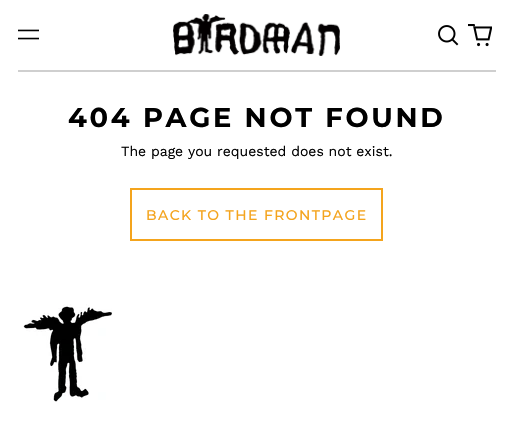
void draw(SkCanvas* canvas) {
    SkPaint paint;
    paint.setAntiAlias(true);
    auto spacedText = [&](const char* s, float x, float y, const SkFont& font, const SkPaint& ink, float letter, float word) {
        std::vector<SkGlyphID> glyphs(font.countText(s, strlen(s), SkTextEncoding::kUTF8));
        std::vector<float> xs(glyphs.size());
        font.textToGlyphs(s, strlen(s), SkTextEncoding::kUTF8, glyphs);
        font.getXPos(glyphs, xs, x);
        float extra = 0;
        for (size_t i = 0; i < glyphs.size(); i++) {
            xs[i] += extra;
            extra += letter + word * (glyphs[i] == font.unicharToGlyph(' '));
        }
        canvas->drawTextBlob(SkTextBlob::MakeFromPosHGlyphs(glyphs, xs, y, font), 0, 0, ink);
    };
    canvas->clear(0xFFFFFFFF);
    paint.setColor(0xFFCFCFCF);
    canvas->drawRect(SkRect::MakeXYWH(18, 70, 478, 2), paint);
    canvas->drawImageRect(SkImages::DeferredFromEncodedData(SkData::MakeFromFileName("img1.png")), SkRect::MakeXYWH(18, 29, 21, 11), SkSamplingOptions());
    canvas->drawImageRect(SkImages::DeferredFromEncodedData(SkData::MakeFromFileName("img2.png")), SkRect::MakeXYWH(173, 14, 167, 42), SkSamplingOptions());
    canvas->drawImageRect(SkImages::DeferredFromEncodedData(SkData::MakeFromFileName("img3.png")), SkRect::MakeXYWH(438, 25, 21, 21), SkSamplingOptions());
    canvas->drawImageRect(SkImages::DeferredFromEncodedData(SkData::MakeFromFileName("img4.png")), SkRect::MakeXYWH(468, 24, 24, 23), SkSamplingOptions());
    SkFont font1(fontMgr->matchFamilyStyle("Montserrat", SkFontStyle::Bold()), 27.3f);
    font1.setSubpixel(true);
    paint.setColor(0xFF000000);
    spacedText("404 PAGE NOT FOUND", 68, 127, font1, paint, 2.75f, 0);
    SkFont font2(fontMgr->matchFamilyStyle("Work Sans", SkFontStyle::Normal()), 14);
    font2.setSubpixel(true);
    canvas->drawString("The page you requested does not exist.", 121, 156, font2, paint);
    paint.setStyle(SkPaint::kStroke_Style);
    paint.setStrokeWidth(2);
    paint.setColor(0xFFF4A41D);
    canvas->drawRect(SkRect::MakeXYWH(131, 189, 251, 51), paint);
    SkFont font3(fontMgr->matchFamilyStyle("Montserrat", SkFontStyle(500, SkFontStyle::kNormal_Width, SkFontStyle::kUpright_Slant)), 14);
    font3.setSubpixel(true);
    paint.setStyle(SkPaint::kFill_Style);
    spacedText("BACK TO THE FRONTPAGE", 146, 220, font3, paint, 1.4f, 0);
    canvas->drawImageRect(SkImages::DeferredFromEncodedData(SkData::MakeFromFileName("img5.png")), SkRect::MakeXYWH(23, 304, 89, 98), SkSamplingOptions());
}
